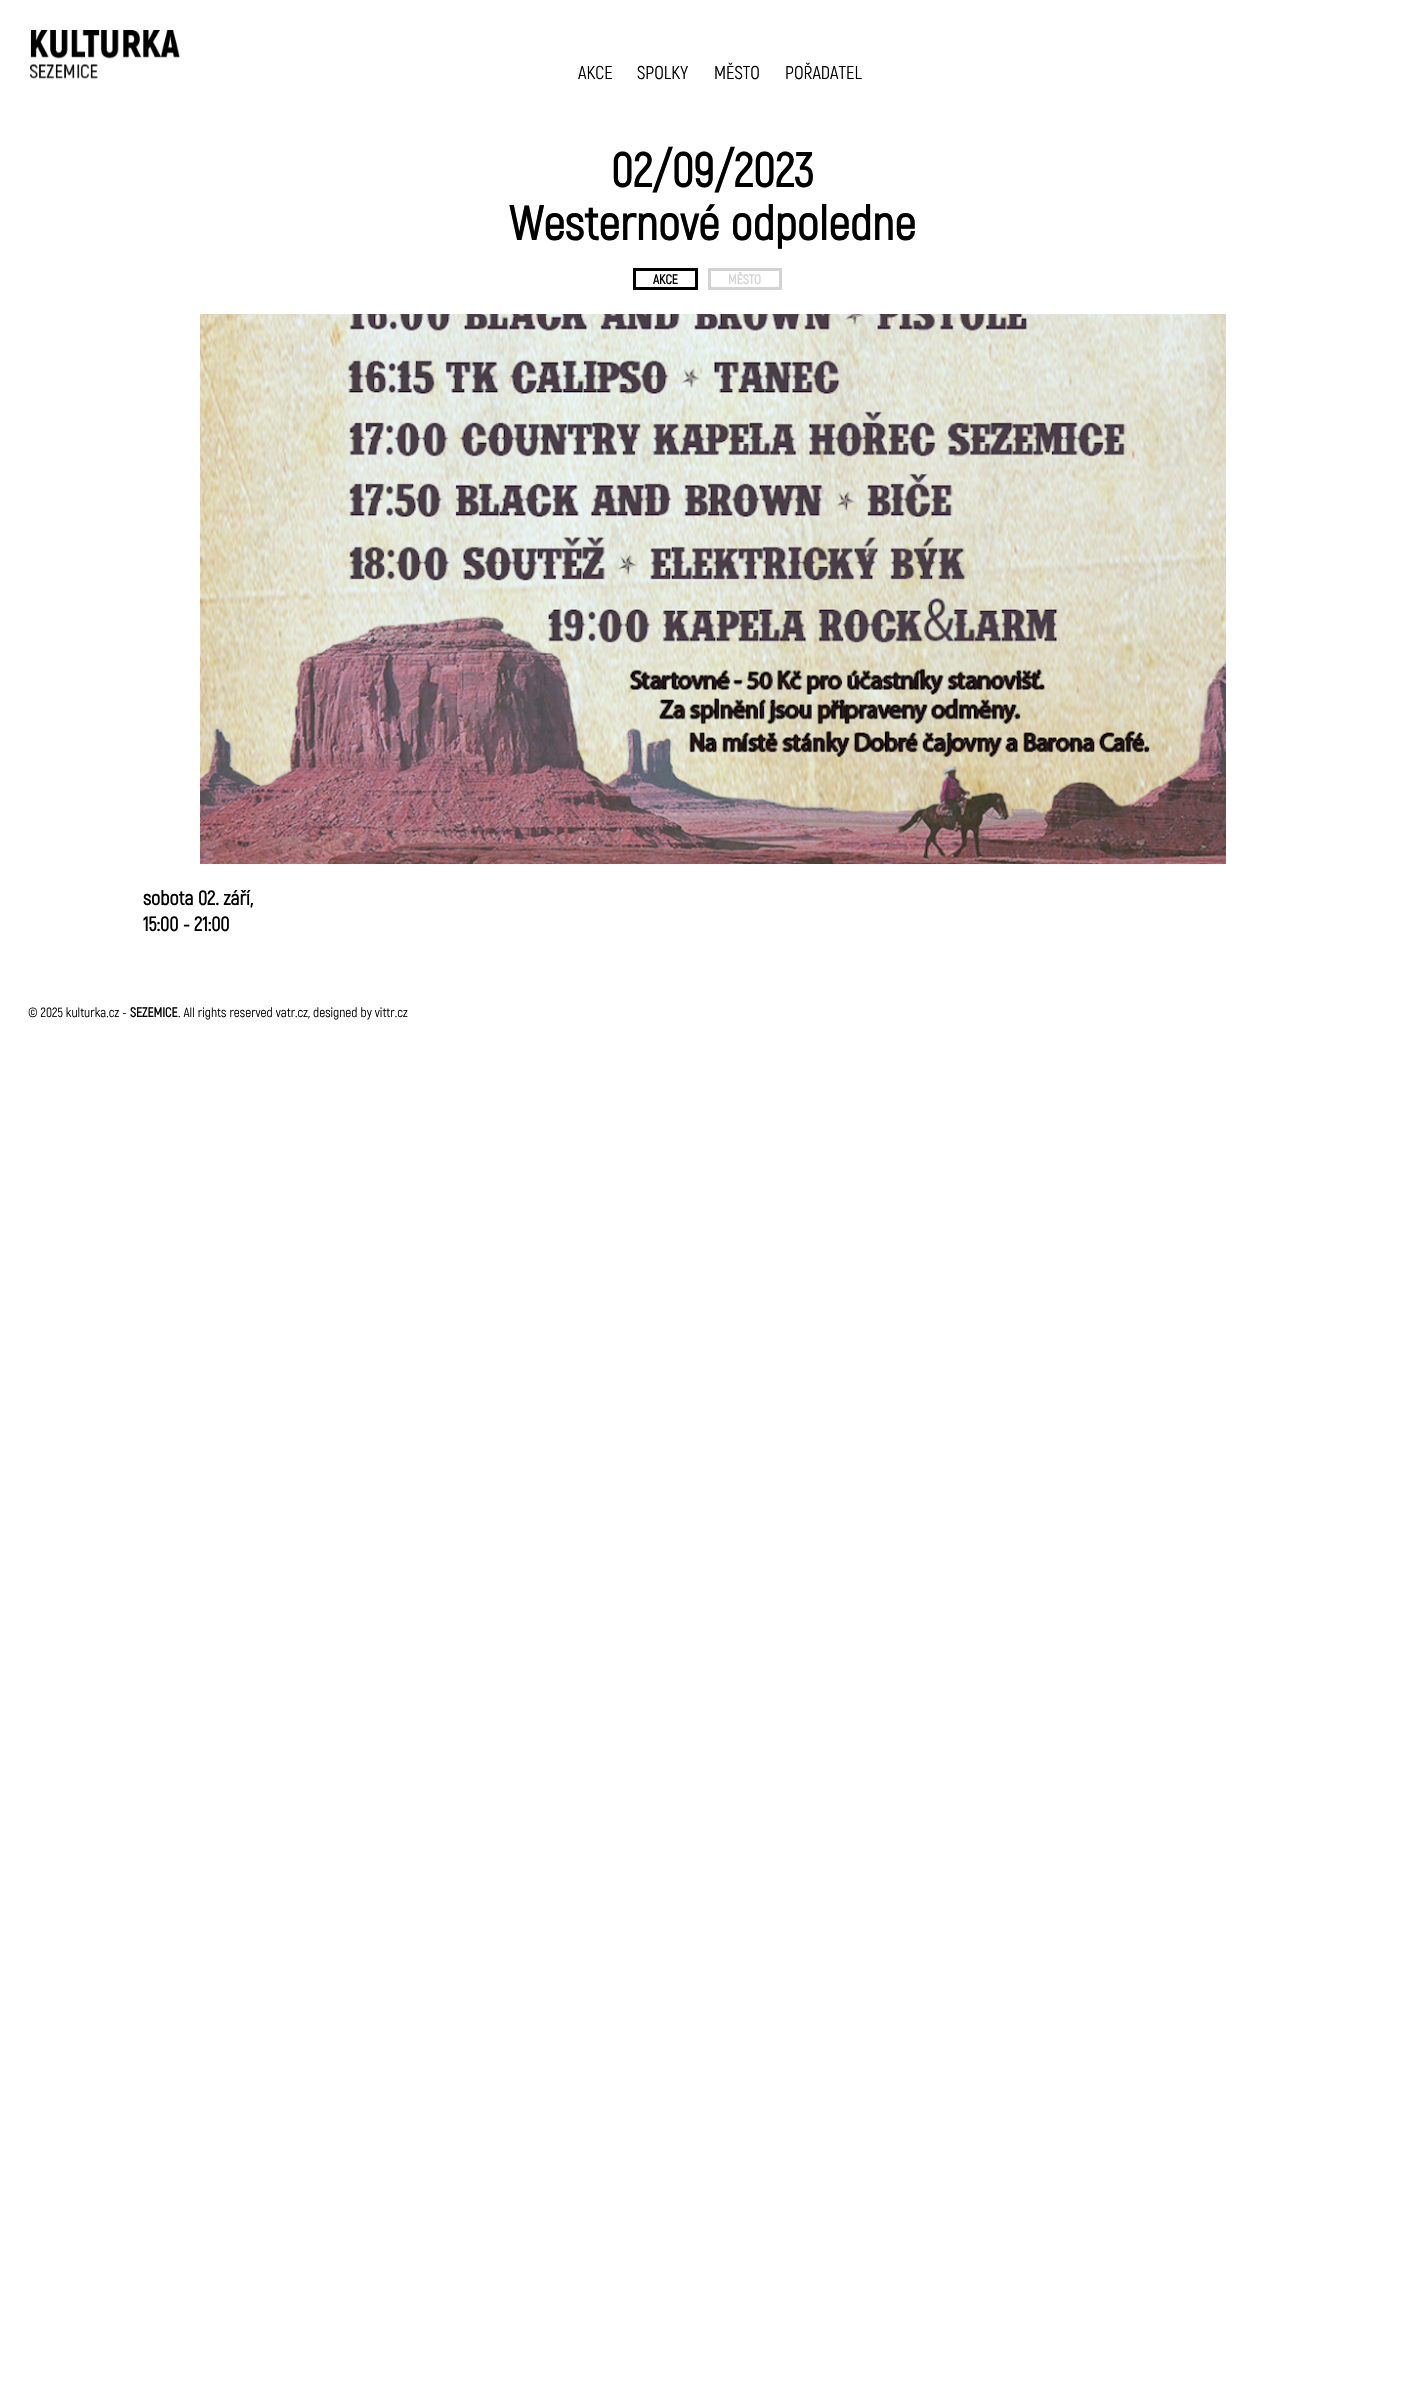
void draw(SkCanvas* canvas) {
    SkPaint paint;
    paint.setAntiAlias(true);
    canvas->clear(0xFFFFFFFF);
    canvas->drawImageRect(SkImages::DeferredFromEncodedData(SkData::MakeFromFileName("img1.png")), SkRect::MakeXYWH(30, 30, 150, 49), SkSamplingOptions());
    SkFont font1(fontMgr->matchFamilyStyle("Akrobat", SkFontStyle::Normal()), 18.5f);
    font1.setSubpixel(true);
    paint.setColor(0xFF000000);
    canvas->drawString("AKCE", 578, 79, font1, paint);
    canvas->drawString("SPOLKY", 637, 79, font1, paint);
    canvas->drawString("MĚSTO", 714, 79, font1, paint);
    canvas->drawString("POŘADATEL", 785, 79, font1, paint);
    SkFont font2(fontMgr->matchFamilyStyle("Akrobat", SkFontStyle::Bold()), 48);
    font2.setSubpixel(true);
    canvas->drawString("02/09/2023", 611, 187, font2, paint);
    canvas->drawString("Westernové odpoledne", 509, 240, font2, paint);
    paint.setStyle(SkPaint::kStroke_Style);
    paint.setStrokeWidth(3);
    canvas->drawRect(SkRect::MakeXYWH(634.5f, 269.5f, 62, 19), paint);
    SkFont font3(fontMgr->matchFamilyStyle("Akrobat", SkFontStyle::Bold()), 13.3f);
    font3.setSubpixel(true);
    paint.setStyle(SkPaint::kFill_Style);
    canvas->drawString("AKCE", 653, 284, font3, paint);
    paint.setStyle(SkPaint::kStroke_Style);
    paint.setColor(0xFFD3D3D3);
    canvas->drawRect(SkRect::MakeXYWH(709.5f, 269.5f, 71, 19), paint);
    paint.setStyle(SkPaint::kFill_Style);
    canvas->drawString("MĚSTO", 728, 284, font3, paint);
    canvas->drawImageRect(SkImages::DeferredFromEncodedData(SkData::MakeFromFileName("img2.png")), SkRect::MakeXYWH(200, 314, 1026, 550), SkSamplingOptions());
    SkFont font4(fontMgr->matchFamilyStyle("Akrobat", SkFontStyle::Bold()), 20);
    font4.setSubpixel(true);
    paint.setColor(0xFF000000);
    canvas->drawString("sobota 02. září,", 143, 905, font4, paint);
    canvas->drawString("15:00 - 21:00", 143, 931, font4, paint);
    SkFont font5(fontMgr->matchFamilyStyle("Akrobat", SkFontStyle::Normal()), 13.3f);
    font5.setSubpixel(true);
    canvas->drawString("© 2025 kulturka.cz -", 28, 1017, font5, paint);
    canvas->drawString("SEZEMICE", 130, 1017, font3, paint);
    canvas->drawString(". All rights reserved vatr.cz, designed by vittr.cz", 178, 1017, font5, paint);
}
